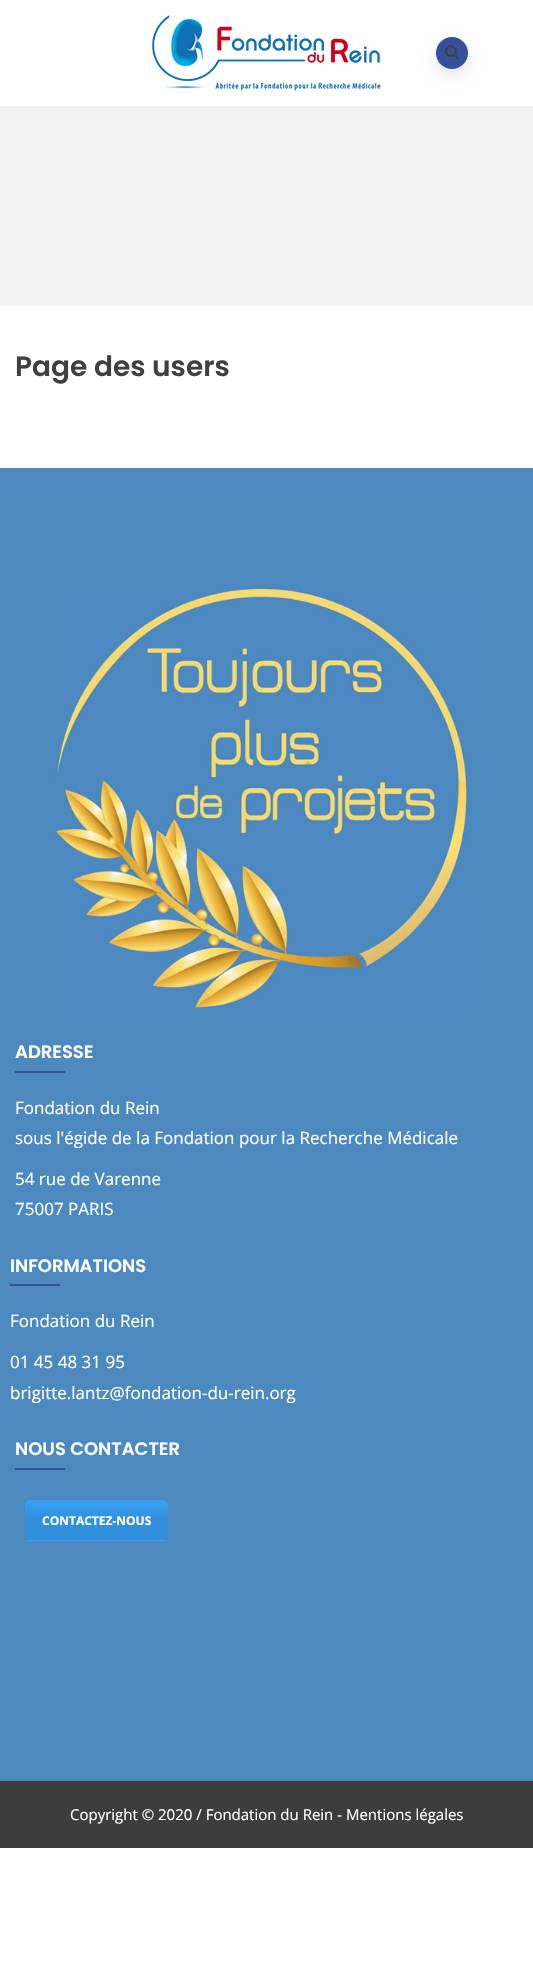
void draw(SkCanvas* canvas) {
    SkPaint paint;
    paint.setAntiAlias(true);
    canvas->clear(0xFFFFFFFF);
    canvas->drawImageRect(SkImages::DeferredFromEncodedData(SkData::MakeFromFileName("img1.png")), SkRect::MakeXYWH(152, 15, 229, 76), SkSamplingOptions());
    paint.setColor(0x1A000000);
    paint.setMaskFilter(SkMaskFilter::MakeBlur(kNormal_SkBlurStyle, 7));
    canvas->drawRoundRect(SkRect::MakeXYWH(436, 43, 32, 32), 16, 16, paint);
    paint.setMaskFilter(nullptr);
    paint.setColor(0xFF374F99);
    canvas->drawCircle(452, 53, 16, paint);
    canvas->drawImageRect(SkImages::DeferredFromEncodedData(SkData::MakeFromFileName("img2.png")), SkRect::MakeXYWH(445, 45, 14, 15), SkSamplingOptions());
    paint.setColor(0xFFF2F2F2);
    canvas->drawRect(SkRect::MakeXYWH(0, 106, 533, 200), paint);
    SkFont font1(fontMgr->matchFamilyStyle("Poppins", SkFontStyle(600, SkFontStyle::kNormal_Width, SkFontStyle::kUpright_Slant)), 28);
    font1.setSubpixel(true);
    paint.setColor(0xFF404040);
    canvas->drawString("Page des users", 15, 376, font1, paint);
    paint.setColor(0xFF4C89BF);
    canvas->drawRect(SkRect::MakeXYWH(0, 468, 533, 1313), paint);
    canvas->drawImageRect(SkImages::DeferredFromEncodedData(SkData::MakeFromFileName("img3.png")), SkRect::MakeXYWH(52, 587, 415, 421), SkSamplingOptions());
    SkFont font2(fontMgr->matchFamilyStyle("Poppins", SkFontStyle(600, SkFontStyle::kNormal_Width, SkFontStyle::kUpright_Slant)), 18);
    font2.setSubpixel(true);
    paint.setColor(0xFFFFFFFF);
    canvas->drawString("ADRESSE", 15, 1058, font2, paint);
    paint.setColor(0xFF374F99);
    canvas->drawRect(SkRect::MakeXYWH(15, 1071, 50, 2), paint);
    SkFont font3(fontMgr->matchFamilyStyle("Open Sans", SkFontStyle::Normal()), 17);
    font3.setSubpixel(true);
    paint.setColor(0xFFFFFFFF);
    canvas->drawString("Fondation du Rein", 15, 1114, font3, paint);
    canvas->drawString("sous l'égide de la Fondation pour la Recherche Médicale", 15, 1144, font3, paint);
    canvas->drawString("54 rue de Varenne", 15, 1185, font3, paint);
    canvas->drawString("75007 PARIS", 15, 1215, font3, paint);
    canvas->drawString("INFORMATIONS", 10, 1272, font2, paint);
    paint.setColor(0xFF374F99);
    canvas->drawRect(SkRect::MakeXYWH(10, 1284, 50, 2), paint);
    paint.setColor(0xFFFFFFFF);
    canvas->drawString("Fondation du Rein", 10, 1327, font3, paint);
    canvas->drawString("01 45 48 31 95", 10, 1368, font3, paint);
    canvas->drawString("brigitte.lantz@fondation-du-rein.org", 10, 1399, font3, paint);
    canvas->drawString("NOUS CONTACTER", 15, 1455, font2, paint);
    paint.setColor(0xFF374F99);
    canvas->drawRect(SkRect::MakeXYWH(15, 1468, 50, 2), paint);
    paint.setColor(0xFF369FF4);
    canvas->drawRoundRect(SkRect::MakeXYWH(25, 1500, 143, 41), 5, 5, paint);
    canvas->save();
    canvas->clipPath(SkPathBuilder().moveTo(30, 1500).lineTo(163, 1500).cubicTo(166, 1500, 168, 1502, 168, 1505).lineTo(168, 1536).cubicTo(168, 1539, 166, 1541, 163, 1541).lineTo(30, 1541).cubicTo(27, 1541, 25, 1539, 25, 1536).lineTo(25, 1505).cubicTo(25, 1502, 27, 1500, 30, 1500).close().detach(), true);
    {
        const SkColor colors[] = {0x00000000, 0x1A000000, 0x1A000000};
        const float stops[] = {0, 0.5f, 1};
        const SkPoint ends[] = {{167, 1501}, {167, 1540}};
        paint.setShader(SkGradientShader::MakeLinear(ends, colors, stops, 3, SkTileMode::kClamp));
        paint.setAlpha(255);
    }
    canvas->drawRect(SkRect::MakeXYWH(25, 1505, 143, 35), paint);
    canvas->restore();
    SkFont font4(fontMgr->matchFamilyStyle("Open Sans", SkFontStyle::Bold()), 12);
    font4.setSubpixel(true);
    paint.setShader(nullptr);
    paint.setColor(0xFFFFFFFF);
    canvas->drawString("CONTACTEZ-NOUS", 42, 1525, font4, paint);
    paint.setColor(0xFF3E3D3D);
    canvas->drawRect(SkRect::MakeXYWH(0, 1781, 533, 67), paint);
    SkFont font5(fontMgr->matchFamilyStyle("Open Sans", SkFontStyle::Normal()), 15);
    font5.setSubpixel(true);
    paint.setColor(0xFFFFFFFF);
    canvas->drawString("Copyright © 2020 / Fondation du Rein - Mentions légales", 70, 1820, font5, paint);
}
